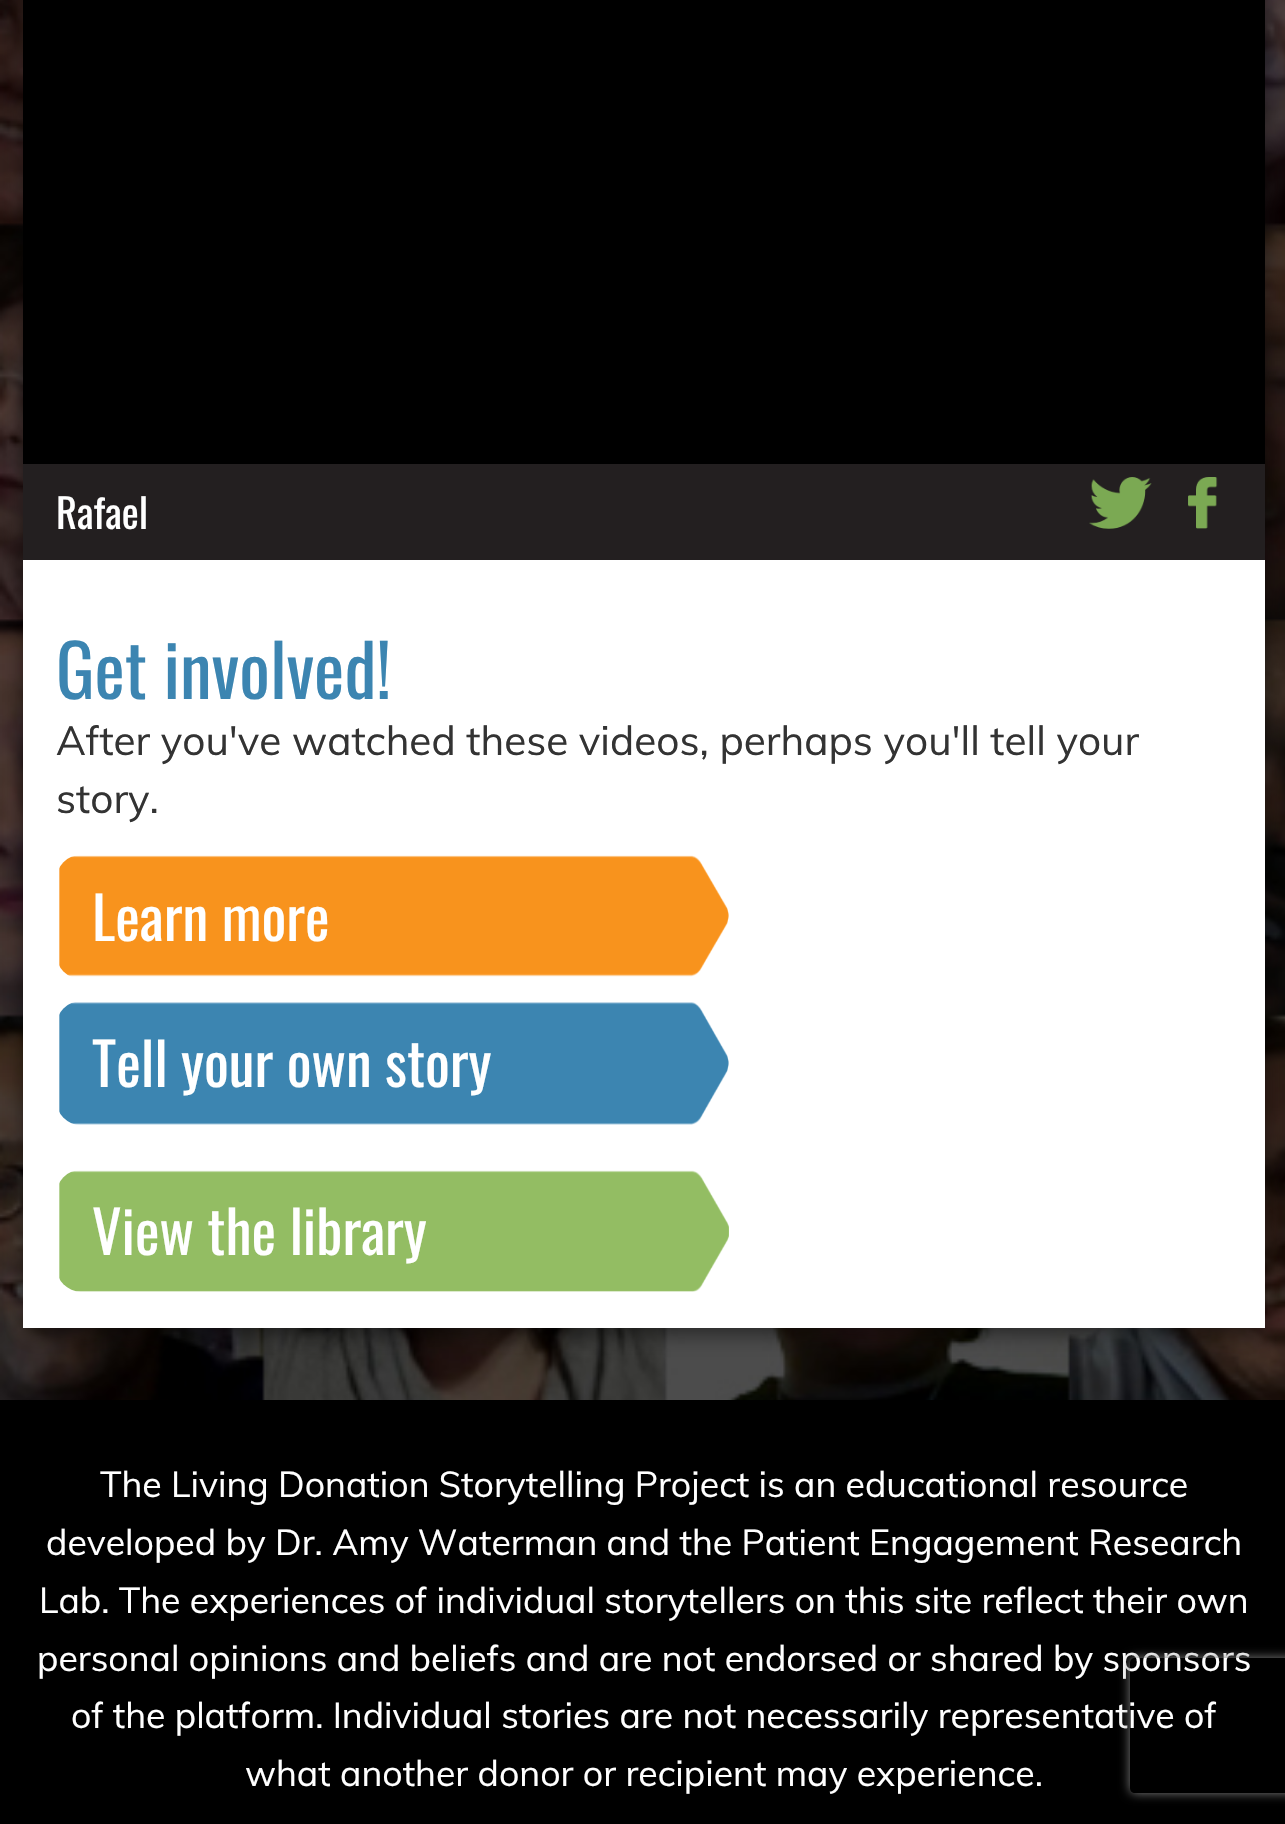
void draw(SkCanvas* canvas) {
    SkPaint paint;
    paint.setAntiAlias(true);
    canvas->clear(0xFFFFFFFF);
    canvas->drawImageRect(SkImages::DeferredFromEncodedData(SkData::MakeFromFileName("img1.png")), SkRect::MakeXYWH(0, 0, 1285, 1400), SkSamplingOptions());
    paint.setColor(0x80000000);
    paint.setMaskFilter(SkMaskFilter::MakeBlur(kNormal_SkBlurStyle, 10));
    canvas->drawRect(SkRect::MakeXYWH(23, -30, 1242, 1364), paint);
    paint.setMaskFilter(nullptr);
    paint.setColor(0xFFFFFFFF);
    canvas->drawRect(SkRect::MakeXYWH(23, 560, 1242, 768), paint);
    paint.setColor(0xFF000000);
    canvas->drawRect(SkRect::MakeXYWH(23, 0, 1242, 464), paint);
    paint.setColor(0xFF231F20);
    canvas->drawRect(SkRect::MakeXYWH(23, 464, 1242, 96), paint);
    SkFont font1(fontMgr->matchFamilyStyle("Oswald", SkFontStyle::Normal()), 40.5f);
    font1.setSubpixel(true);
    paint.setColor(0xFFFFFFFF);
    canvas->drawString("Rafael", 56, 529, font1, paint);
    canvas->drawImageRect(SkImages::DeferredFromEncodedData(SkData::MakeFromFileName("img2.png")), SkRect::MakeXYWH(1089, 477, 63, 52), SkSamplingOptions());
    canvas->drawImageRect(SkImages::DeferredFromEncodedData(SkData::MakeFromFileName("img3.png")), SkRect::MakeXYWH(1188, 477, 30, 52), SkSamplingOptions());
    SkFont font2(fontMgr->matchFamilyStyle("Oswald", SkFontStyle::Normal()), 72);
    font2.setSubpixel(true);
    paint.setColor(0xFF3C85B1);
    canvas->drawString("Get involved!", 56, 699, font2, paint);
    SkFont font3(fontMgr->matchFamilyStyle("Muli", SkFontStyle::Normal()), 40.5f);
    font3.setSubpixel(true);
    paint.setColor(0xFF333333);
    canvas->drawString("After you've watched these videos, perhaps you'll tell your", 56, 755, font3, paint);
    canvas->drawString("story.", 56, 813, font3, paint);
    canvas->drawImageRect(SkImages::DeferredFromEncodedData(SkData::MakeFromFileName("img4.png")), SkRect::MakeXYWH(59, 855, 670, 122), SkSamplingOptions());
    SkFont font4(fontMgr->matchFamilyStyle("Oswald", SkFontStyle::Normal()), 58.5f);
    font4.setSubpixel(true);
    paint.setColor(0xFFFFFFFF);
    canvas->drawString("Learn more", 92, 941, font4, paint);
    canvas->drawImageRect(SkImages::DeferredFromEncodedData(SkData::MakeFromFileName("img5.png")), SkRect::MakeXYWH(59, 1002, 670, 123), SkSamplingOptions());
    canvas->drawString("Tell your own story", 92, 1087, font4, paint);
    canvas->drawImageRect(SkImages::DeferredFromEncodedData(SkData::MakeFromFileName("img6.png")), SkRect::MakeXYWH(59, 1170, 670, 122), SkSamplingOptions());
    canvas->drawString("View the library", 92, 1255, font4, paint);
    paint.setColor(0xFF000000);
    canvas->drawRect(SkRect::MakeXYWH(0, 1400, 1285, 424), paint);
    SkFont font5(fontMgr->matchFamilyStyle("Muli", SkFontStyle::Normal()), 35.65f);
    font5.setSubpixel(true);
    paint.setColor(0xFFFFFFFF);
    canvas->drawString("The Living Donation Storytelling Project is an educational resource", 100, 1497, font5, paint);
    canvas->drawString("developed by Dr. Amy Waterman and the Patient Engagement Research", 46, 1555, font5, paint);
    canvas->drawString("Lab. The experiences of individual storytellers on this site reflect their own", 39, 1613, font5, paint);
    canvas->drawString("personal opinions and beliefs and are not endorsed or shared by sponsors", 37, 1671, font5, paint);
    canvas->drawString("of the platform. Individual stories are not necessarily representative of", 71, 1728, font5, paint);
    canvas->drawString("what another donor or recipient may experience.", 245, 1786, font5, paint);
    canvas->save();
    canvas->clipPath(SkPathBuilder(SkPathFillType::kEvenOdd).moveTo(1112, 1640).lineTo(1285, 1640).lineTo(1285, 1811).lineTo(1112, 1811).close().moveTo(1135, 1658).lineTo(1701, 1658).cubicTo(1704, 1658, 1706, 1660, 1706, 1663).lineTo(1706, 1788).cubicTo(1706, 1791, 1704, 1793, 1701, 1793).lineTo(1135, 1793).cubicTo(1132, 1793, 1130, 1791, 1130, 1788).lineTo(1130, 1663).cubicTo(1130, 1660, 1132, 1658, 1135, 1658).close().detach(), true);
    paint.setColor(0xFF808080);
    paint.setMaskFilter(SkMaskFilter::MakeBlur(kNormal_SkBlurStyle, 5.5f));
    canvas->drawRoundRect(SkRect::MakeXYWH(1130, 1658, 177, 135), 5, 5, paint);
    paint.setMaskFilter(nullptr);
    canvas->restore();
}
